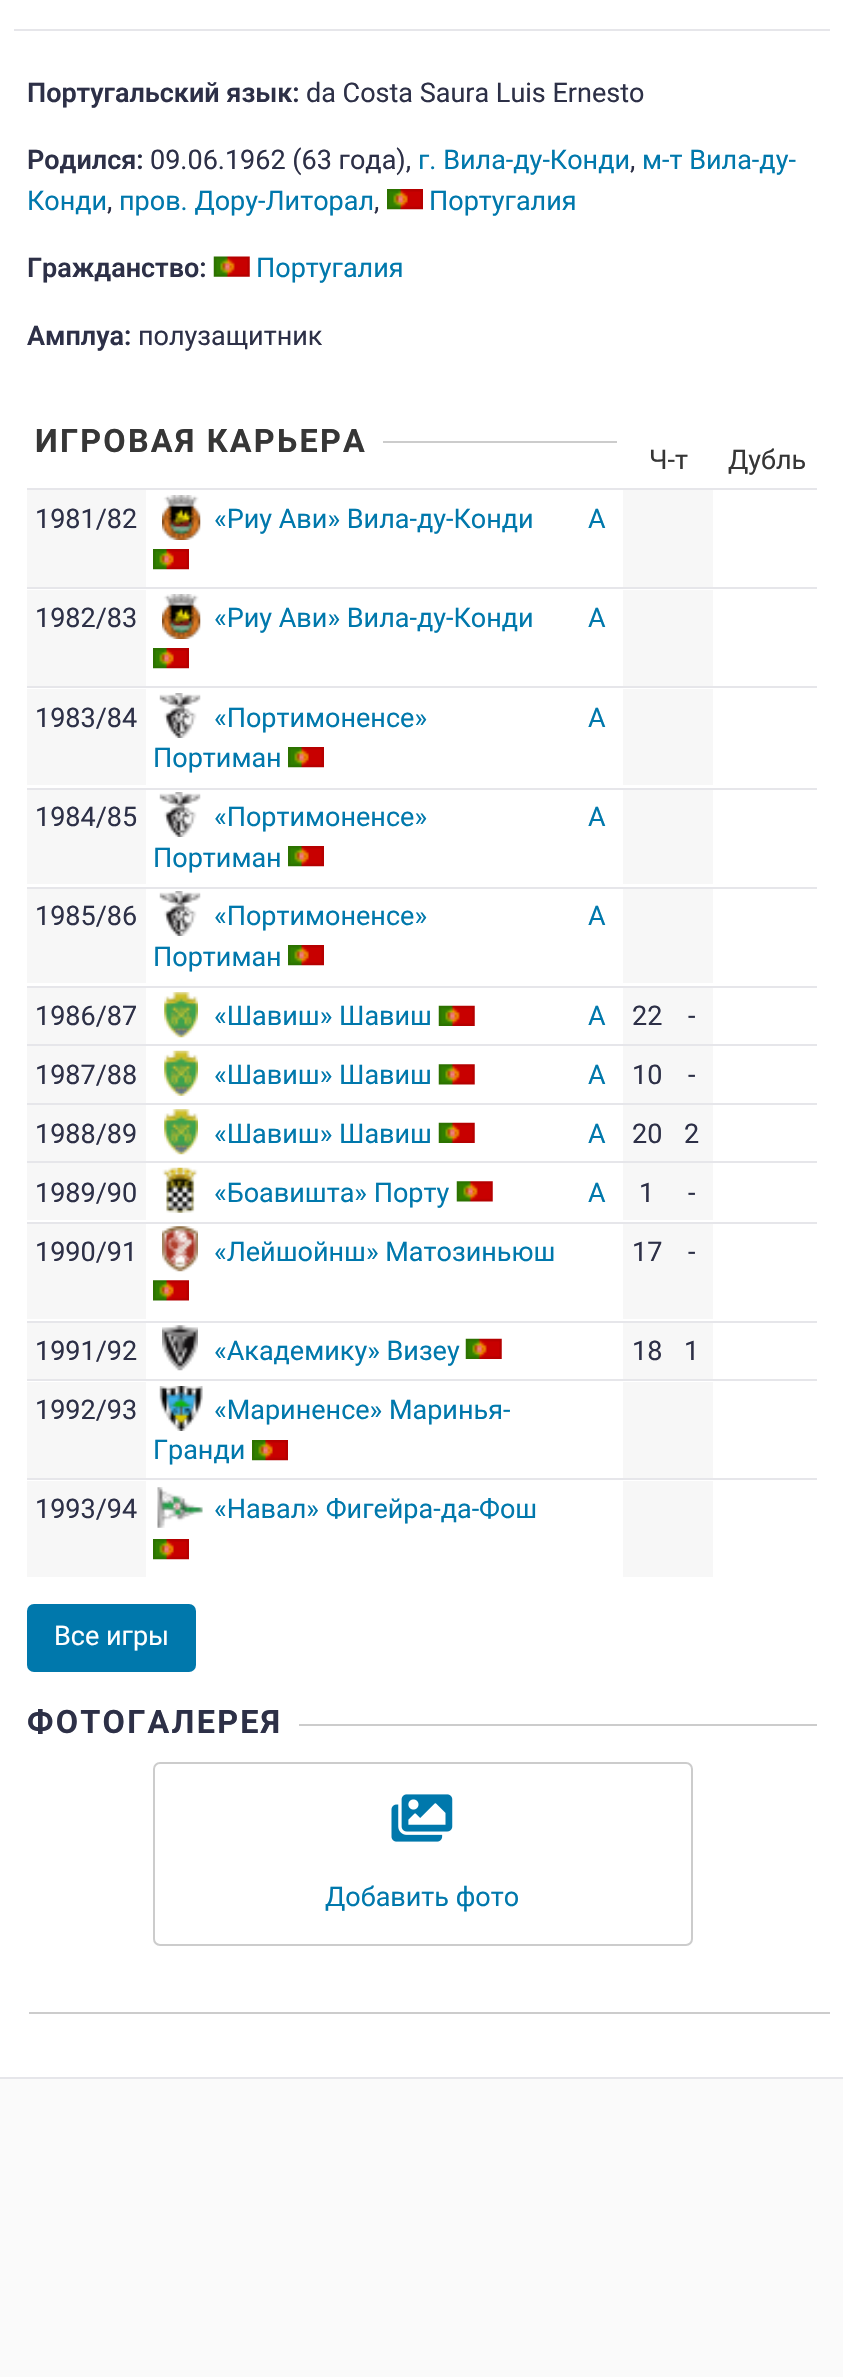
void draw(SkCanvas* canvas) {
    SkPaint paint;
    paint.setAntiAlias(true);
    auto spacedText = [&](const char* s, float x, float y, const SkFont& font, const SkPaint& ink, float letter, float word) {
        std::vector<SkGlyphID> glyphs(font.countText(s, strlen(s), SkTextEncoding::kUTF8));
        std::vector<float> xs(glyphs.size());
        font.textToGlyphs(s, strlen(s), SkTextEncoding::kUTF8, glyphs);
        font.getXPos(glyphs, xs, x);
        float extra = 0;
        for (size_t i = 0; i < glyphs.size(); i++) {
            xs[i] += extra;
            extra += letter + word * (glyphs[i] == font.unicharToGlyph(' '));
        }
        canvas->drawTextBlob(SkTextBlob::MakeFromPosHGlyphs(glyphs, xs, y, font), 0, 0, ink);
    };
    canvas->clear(0xFFFFFFFF);
    paint.setColor(0xFFE6E6EA);
    canvas->drawRect(SkRect::MakeXYWH(14, 29, 816, 2), paint);
    SkFont font1(fontMgr->matchFamilyStyle("Roboto", SkFontStyle(600, SkFontStyle::kNormal_Width, SkFontStyle::kUpright_Slant)), 27);
    font1.setSubpixel(true);
    paint.setColor(0xFF2D3047);
    canvas->drawString("Португальский язык:", 27, 102, font1, paint);
    SkFont font2(fontMgr->matchFamilyStyle("Roboto", SkFontStyle::Normal()), 27);
    font2.setSubpixel(true);
    canvas->drawString("da Costa Saura Luis Ernesto", 306, 102, font2, paint);
    canvas->drawString("Родился:", 27, 169, font1, paint);
    canvas->drawString("09.06.1962 (63 года),", 150, 169, font2, paint);
    paint.setColor(0xFF0078AC);
    canvas->drawString("г. Вила-ду-Конди", 418, 169, font2, paint);
    paint.setColor(0xFF2D3047);
    canvas->drawString(",", 630, 169, font2, paint);
    paint.setColor(0xFF0078AC);
    canvas->drawString("м-т Вила-ду-", 642, 169, font2, paint);
    canvas->drawString("Конди", 27, 210, font2, paint);
    paint.setColor(0xFF2D3047);
    canvas->drawString(",", 107, 210, font2, paint);
    paint.setColor(0xFF0078AC);
    canvas->drawString("пров. Дору-Литорал", 119, 210, font2, paint);
    paint.setColor(0xFF2D3047);
    canvas->drawString(",", 374, 210, font2, paint);
    canvas->drawImageRect(SkImages::DeferredFromEncodedData(SkData::MakeFromFileName("img1.png")), SkRect::MakeXYWH(387, 189, 36, 21), SkSamplingOptions());
    paint.setColor(0xFF0078AC);
    canvas->drawString("Португалия", 429, 210, font2, paint);
    paint.setColor(0xFF2D3047);
    canvas->drawString("Гражданство:", 27, 277, font1, paint);
    canvas->drawImageRect(SkImages::DeferredFromEncodedData(SkData::MakeFromFileName("img2.png")), SkRect::MakeXYWH(213, 256, 37, 21), SkSamplingOptions());
    paint.setColor(0xFF0078AC);
    canvas->drawString("Португалия", 256, 277, font2, paint);
    paint.setColor(0xFF2D3047);
    canvas->drawString("Амплуа:", 27, 345, font1, paint);
    canvas->drawString("полузащитник", 138, 345, font2, paint);
    SkFont font3(fontMgr->matchFamilyStyle("Roboto", SkFontStyle::Bold()), 32.4f);
    font3.setSubpixel(true);
    paint.setColor(0xFF363636);
    spacedText("ИГРОВАЯ КАРЬЕРА", 35, 452, font3, paint, 2.25f, 0);
    paint.setColor(0xFFCCCCCC);
    canvas->drawRect(SkRect::MakeXYWH(383, 441, 234, 2), paint);
    paint.setColor(0xFF363636);
    canvas->drawString("Ч-т", 649, 469, font2, paint);
    paint.setColor(0xFFE6E6EA);
    canvas->drawRect(SkRect::MakeXYWH(27, 488, 790, 2), paint);
    paint.setColor(0xFF363636);
    canvas->drawString("Дубль", 728, 469, font2, paint);
    paint.setColor(0xFFF7F7F7);
    canvas->drawRect(SkRect::MakeXYWH(27, 490, 119, 97), paint);
    paint.setColor(0xFF2D3047);
    canvas->drawString("1981/82", 35, 528, font2, paint);
    canvas->drawImageRect(SkImages::DeferredFromEncodedData(SkData::MakeFromFileName("img3.png")), SkRect::MakeXYWH(162, 495, 39, 45), SkSamplingOptions());
    paint.setColor(0xFF0078AC);
    canvas->drawString("«Риу Ави» Вила-ду-Конди", 214, 528, font2, paint);
    canvas->drawImageRect(SkImages::DeferredFromEncodedData(SkData::MakeFromFileName("img1.png")), SkRect::MakeXYWH(153, 549, 36, 21), SkSamplingOptions());
    canvas->drawString("А", 588, 528, font2, paint);
    paint.setColor(0xFFF7F7F7);
    canvas->drawRect(SkRect::MakeXYWH(623, 490, 90, 97), paint);
    paint.setColor(0xFFE6E6EA);
    canvas->drawRect(SkRect::MakeXYWH(27, 587, 790, 2), paint);
    paint.setColor(0xFFF7F7F7);
    canvas->drawRect(SkRect::MakeXYWH(27, 590, 119, 96), paint);
    paint.setColor(0xFF2D3047);
    canvas->drawString("1982/83", 35, 627, font2, paint);
    canvas->drawImageRect(SkImages::DeferredFromEncodedData(SkData::MakeFromFileName("img3.png")), SkRect::MakeXYWH(162, 594, 39, 45), SkSamplingOptions());
    paint.setColor(0xFF0078AC);
    canvas->drawString("«Риу Ави» Вила-ду-Конди", 214, 627, font2, paint);
    canvas->drawImageRect(SkImages::DeferredFromEncodedData(SkData::MakeFromFileName("img1.png")), SkRect::MakeXYWH(153, 648, 36, 21), SkSamplingOptions());
    canvas->drawString("А", 588, 627, font2, paint);
    paint.setColor(0xFFF7F7F7);
    canvas->drawRect(SkRect::MakeXYWH(623, 590, 90, 96), paint);
    paint.setColor(0xFFE6E6EA);
    canvas->drawRect(SkRect::MakeXYWH(27, 686, 790, 2), paint);
    paint.setColor(0xFFF7F7F7);
    canvas->drawRect(SkRect::MakeXYWH(27, 689, 119, 96), paint);
    paint.setColor(0xFF2D3047);
    canvas->drawString("1983/84", 35, 727, font2, paint);
    canvas->drawImageRect(SkImages::DeferredFromEncodedData(SkData::MakeFromFileName("img4.png")), SkRect::MakeXYWH(159, 693, 42, 45), SkSamplingOptions());
    paint.setColor(0xFF0078AC);
    canvas->drawString("«Портимоненсе»", 214, 727, font2, paint);
    canvas->drawString("Портиман", 153, 767, font2, paint);
    canvas->drawImageRect(SkImages::DeferredFromEncodedData(SkData::MakeFromFileName("img1.png")), SkRect::MakeXYWH(288, 747, 36, 21), SkSamplingOptions());
    canvas->drawString("А", 588, 727, font2, paint);
    paint.setColor(0xFFF7F7F7);
    canvas->drawRect(SkRect::MakeXYWH(623, 689, 90, 96), paint);
    paint.setColor(0xFFE6E6EA);
    canvas->drawRect(SkRect::MakeXYWH(27, 788, 790, 2), paint);
    paint.setColor(0xFFF7F7F7);
    canvas->drawRect(SkRect::MakeXYWH(27, 790, 119, 94), paint);
    paint.setColor(0xFF2D3047);
    canvas->drawString("1984/85", 35, 826, font2, paint);
    canvas->drawImageRect(SkImages::DeferredFromEncodedData(SkData::MakeFromFileName("img4.png")), SkRect::MakeXYWH(159, 792, 42, 45), SkSamplingOptions());
    paint.setColor(0xFF0078AC);
    canvas->drawString("«Портимоненсе»", 214, 826, font2, paint);
    canvas->drawString("Портиман", 153, 867, font2, paint);
    canvas->drawImageRect(SkImages::DeferredFromEncodedData(SkData::MakeFromFileName("img1.png")), SkRect::MakeXYWH(288, 846, 36, 21), SkSamplingOptions());
    canvas->drawString("А", 588, 826, font2, paint);
    paint.setColor(0xFFF7F7F7);
    canvas->drawRect(SkRect::MakeXYWH(623, 790, 90, 94), paint);
    paint.setColor(0xFFE6E6EA);
    canvas->drawRect(SkRect::MakeXYWH(27, 887, 790, 2), paint);
    paint.setColor(0xFFF7F7F7);
    canvas->drawRect(SkRect::MakeXYWH(27, 889, 119, 94), paint);
    paint.setColor(0xFF2D3047);
    canvas->drawString("1985/86", 35, 925, font2, paint);
    canvas->drawImageRect(SkImages::DeferredFromEncodedData(SkData::MakeFromFileName("img4.png")), SkRect::MakeXYWH(159, 891, 42, 45), SkSamplingOptions());
    paint.setColor(0xFF0078AC);
    canvas->drawString("«Портимоненсе»", 214, 925, font2, paint);
    canvas->drawString("Портиман", 153, 966, font2, paint);
    canvas->drawImageRect(SkImages::DeferredFromEncodedData(SkData::MakeFromFileName("img1.png")), SkRect::MakeXYWH(288, 945, 36, 21), SkSamplingOptions());
    canvas->drawString("А", 588, 925, font2, paint);
    paint.setColor(0xFFF7F7F7);
    canvas->drawRect(SkRect::MakeXYWH(623, 889, 90, 94), paint);
    paint.setColor(0xFFE6E6EA);
    canvas->drawRect(SkRect::MakeXYWH(27, 986, 790, 2), paint);
    paint.setColor(0xFFF7F7F7);
    canvas->drawRect(SkRect::MakeXYWH(27, 988, 119, 56), paint);
    paint.setColor(0xFF2D3047);
    canvas->drawString("1986/87", 35, 1025, font2, paint);
    canvas->drawImageRect(SkImages::DeferredFromEncodedData(SkData::MakeFromFileName("img5.png")), SkRect::MakeXYWH(164, 992, 34, 46), SkSamplingOptions());
    paint.setColor(0xFF0078AC);
    canvas->drawString("«Шавиш» Шавиш", 214, 1025, font2, paint);
    canvas->drawImageRect(SkImages::DeferredFromEncodedData(SkData::MakeFromFileName("img6.png")), SkRect::MakeXYWH(438, 1005, 37, 21), SkSamplingOptions());
    canvas->drawString("А", 588, 1025, font2, paint);
    paint.setColor(0xFFF7F7F7);
    canvas->drawRect(SkRect::MakeXYWH(623, 988, 90, 56), paint);
    paint.setColor(0xFF2D3047);
    canvas->drawString("22", 632, 1025, font2, paint);
    canvas->drawString("-", 688, 1025, font2, paint);
    paint.setColor(0xFFE6E6EA);
    canvas->drawRect(SkRect::MakeXYWH(27, 1044, 790, 2), paint);
    paint.setColor(0xFFF7F7F7);
    canvas->drawRect(SkRect::MakeXYWH(27, 1046, 119, 57), paint);
    paint.setColor(0xFF2D3047);
    canvas->drawString("1987/88", 35, 1084, font2, paint);
    canvas->drawImageRect(SkImages::DeferredFromEncodedData(SkData::MakeFromFileName("img7.png")), SkRect::MakeXYWH(164, 1050, 34, 46), SkSamplingOptions());
    paint.setColor(0xFF0078AC);
    canvas->drawString("«Шавиш» Шавиш", 214, 1084, font2, paint);
    canvas->drawImageRect(SkImages::DeferredFromEncodedData(SkData::MakeFromFileName("img8.png")), SkRect::MakeXYWH(438, 1064, 37, 21), SkSamplingOptions());
    canvas->drawString("А", 588, 1084, font2, paint);
    paint.setColor(0xFFF7F7F7);
    canvas->drawRect(SkRect::MakeXYWH(623, 1046, 90, 57), paint);
    paint.setColor(0xFF2D3047);
    canvas->drawString("10", 632, 1084, font2, paint);
    canvas->drawString("-", 688, 1084, font2, paint);
    paint.setColor(0xFFE6E6EA);
    canvas->drawRect(SkRect::MakeXYWH(27, 1103, 790, 2), paint);
    paint.setColor(0xFFF7F7F7);
    canvas->drawRect(SkRect::MakeXYWH(27, 1105, 119, 56), paint);
    paint.setColor(0xFF2D3047);
    canvas->drawString("1988/89", 35, 1143, font2, paint);
    canvas->drawImageRect(SkImages::DeferredFromEncodedData(SkData::MakeFromFileName("img5.png")), SkRect::MakeXYWH(164, 1109, 34, 46), SkSamplingOptions());
    paint.setColor(0xFF0078AC);
    canvas->drawString("«Шавиш» Шавиш", 214, 1143, font2, paint);
    canvas->drawImageRect(SkImages::DeferredFromEncodedData(SkData::MakeFromFileName("img6.png")), SkRect::MakeXYWH(438, 1122, 37, 21), SkSamplingOptions());
    canvas->drawString("А", 588, 1143, font2, paint);
    paint.setColor(0xFFF7F7F7);
    canvas->drawRect(SkRect::MakeXYWH(623, 1105, 90, 56), paint);
    paint.setColor(0xFF2D3047);
    canvas->drawString("20", 632, 1143, font2, paint);
    canvas->drawString("2", 684, 1143, font2, paint);
    paint.setColor(0xFFE6E6EA);
    canvas->drawRect(SkRect::MakeXYWH(27, 1161, 790, 2), paint);
    paint.setColor(0xFFF7F7F7);
    canvas->drawRect(SkRect::MakeXYWH(27, 1163, 119, 57), paint);
    paint.setColor(0xFF2D3047);
    canvas->drawString("1989/90", 35, 1202, font2, paint);
    canvas->drawImageRect(SkImages::DeferredFromEncodedData(SkData::MakeFromFileName("img9.png")), SkRect::MakeXYWH(162, 1167, 36, 46), SkSamplingOptions());
    paint.setColor(0xFF0078AC);
    canvas->drawString("«Боавишта» Порту", 214, 1202, font2, paint);
    canvas->drawImageRect(SkImages::DeferredFromEncodedData(SkData::MakeFromFileName("img8.png")), SkRect::MakeXYWH(456, 1181, 37, 21), SkSamplingOptions());
    canvas->drawString("А", 588, 1202, font2, paint);
    paint.setColor(0xFFF7F7F7);
    canvas->drawRect(SkRect::MakeXYWH(623, 1163, 90, 57), paint);
    paint.setColor(0xFF2D3047);
    canvas->drawString("1", 639, 1202, font2, paint);
    canvas->drawString("-", 688, 1202, font2, paint);
    paint.setColor(0xFFE6E6EA);
    canvas->drawRect(SkRect::MakeXYWH(27, 1222, 790, 2), paint);
    paint.setColor(0xFFF7F7F7);
    canvas->drawRect(SkRect::MakeXYWH(27, 1224, 119, 95), paint);
    paint.setColor(0xFF2D3047);
    canvas->drawString("1990/91", 35, 1261, font2, paint);
    canvas->drawImageRect(SkImages::DeferredFromEncodedData(SkData::MakeFromFileName("img10.png")), SkRect::MakeXYWH(162, 1226, 36, 46), SkSamplingOptions());
    paint.setColor(0xFF0078AC);
    canvas->drawString("«Лейшойнш» Матозиньюш", 214, 1261, font2, paint);
    canvas->drawImageRect(SkImages::DeferredFromEncodedData(SkData::MakeFromFileName("img11.png")), SkRect::MakeXYWH(153, 1280, 36, 21), SkSamplingOptions());
    paint.setColor(0xFFF7F7F7);
    canvas->drawRect(SkRect::MakeXYWH(623, 1224, 90, 95), paint);
    paint.setColor(0xFF2D3047);
    canvas->drawString("17", 632, 1261, font2, paint);
    canvas->drawString("-", 688, 1261, font2, paint);
    paint.setColor(0xFFE6E6EA);
    canvas->drawRect(SkRect::MakeXYWH(27, 1321, 790, 2), paint);
    paint.setColor(0xFFF7F7F7);
    canvas->drawRect(SkRect::MakeXYWH(27, 1323, 119, 56), paint);
    paint.setColor(0xFF2D3047);
    canvas->drawString("1991/92", 35, 1360, font2, paint);
    canvas->drawImageRect(SkImages::DeferredFromEncodedData(SkData::MakeFromFileName("img12.png")), SkRect::MakeXYWH(162, 1325, 36, 46), SkSamplingOptions());
    paint.setColor(0xFF0078AC);
    canvas->drawString("«Академику» Визеу", 214, 1360, font2, paint);
    canvas->drawImageRect(SkImages::DeferredFromEncodedData(SkData::MakeFromFileName("img6.png")), SkRect::MakeXYWH(465, 1338, 37, 21), SkSamplingOptions());
    paint.setColor(0xFFF7F7F7);
    canvas->drawRect(SkRect::MakeXYWH(623, 1323, 90, 56), paint);
    paint.setColor(0xFF2D3047);
    canvas->drawString("18", 632, 1360, font2, paint);
    canvas->drawString("1", 684, 1360, font2, paint);
    paint.setColor(0xFFE6E6EA);
    canvas->drawRect(SkRect::MakeXYWH(27, 1379, 790, 2), paint);
    paint.setColor(0xFFF7F7F7);
    canvas->drawRect(SkRect::MakeXYWH(27, 1382, 119, 96), paint);
    paint.setColor(0xFF2D3047);
    canvas->drawString("1992/93", 35, 1419, font2, paint);
    canvas->drawImageRect(SkImages::DeferredFromEncodedData(SkData::MakeFromFileName("img13.png")), SkRect::MakeXYWH(159, 1386, 44, 45), SkSamplingOptions());
    paint.setColor(0xFF0078AC);
    canvas->drawString("«Мариненсе» Маринья-", 214, 1419, font2, paint);
    canvas->drawString("Гранди", 153, 1459, font2, paint);
    canvas->drawImageRect(SkImages::DeferredFromEncodedData(SkData::MakeFromFileName("img14.png")), SkRect::MakeXYWH(252, 1440, 36, 21), SkSamplingOptions());
    paint.setColor(0xFFF7F7F7);
    canvas->drawRect(SkRect::MakeXYWH(623, 1382, 90, 96), paint);
    paint.setColor(0xFFE6E6EA);
    canvas->drawRect(SkRect::MakeXYWH(27, 1478, 790, 2), paint);
    paint.setColor(0xFFF7F7F7);
    canvas->drawRect(SkRect::MakeXYWH(27, 1481, 119, 96), paint);
    paint.setColor(0xFF2D3047);
    canvas->drawString("1993/94", 35, 1518, font2, paint);
    canvas->drawImageRect(SkImages::DeferredFromEncodedData(SkData::MakeFromFileName("img15.png")), SkRect::MakeXYWH(157, 1487, 46, 41), SkSamplingOptions());
    paint.setColor(0xFF0078AC);
    canvas->drawString("«Навал» Фигейра-да-Фош", 214, 1518, font2, paint);
    canvas->drawImageRect(SkImages::DeferredFromEncodedData(SkData::MakeFromFileName("img1.png")), SkRect::MakeXYWH(153, 1539, 36, 21), SkSamplingOptions());
    paint.setColor(0xFFF7F7F7);
    canvas->drawRect(SkRect::MakeXYWH(623, 1481, 90, 96), paint);
    paint.setColor(0xFF0078AC);
    canvas->drawRoundRect(SkRect::MakeXYWH(27, 1604, 169, 68), 7, 7, paint);
    paint.setColor(0xFFFFFFFF);
    canvas->drawString("Все игры", 54, 1645, font2, paint);
    paint.setColor(0xFF2D3047);
    spacedText("ФОТОГАЛЕРЕЯ", 27, 1733, font3, paint, 2.25f, 0);
    paint.setColor(0xFFCCCCCC);
    canvas->drawRect(SkRect::MakeXYWH(299, 1724, 518, 2), paint);
    paint.setStyle(SkPaint::kStroke_Style);
    paint.setStrokeWidth(2);
    canvas->drawRoundRect(SkRect::MakeXYWH(154, 1763, 538, 182), 6, 6, paint);
    canvas->drawImageRect(SkImages::DeferredFromEncodedData(SkData::MakeFromFileName("img16.png")), SkRect::MakeXYWH(391, 1794, 62, 48), SkSamplingOptions());
    paint.setStyle(SkPaint::kFill_Style);
    paint.setColor(0xFF0078AC);
    canvas->drawString("Добавить фото", 325, 1906, font2, paint);
    paint.setColor(0xFFCCCCCC);
    canvas->drawRect(SkRect::MakeXYWH(29, 2012, 801, 2), paint);
    paint.setColor(0xFFFAFAFA);
    canvas->drawRect(SkRect::MakeXYWH(0, 2079, 843, 298), paint);
    paint.setColor(0xFFE6E6EA);
    canvas->drawRect(SkRect::MakeXYWH(0, 2077, 843, 2), paint);
}
